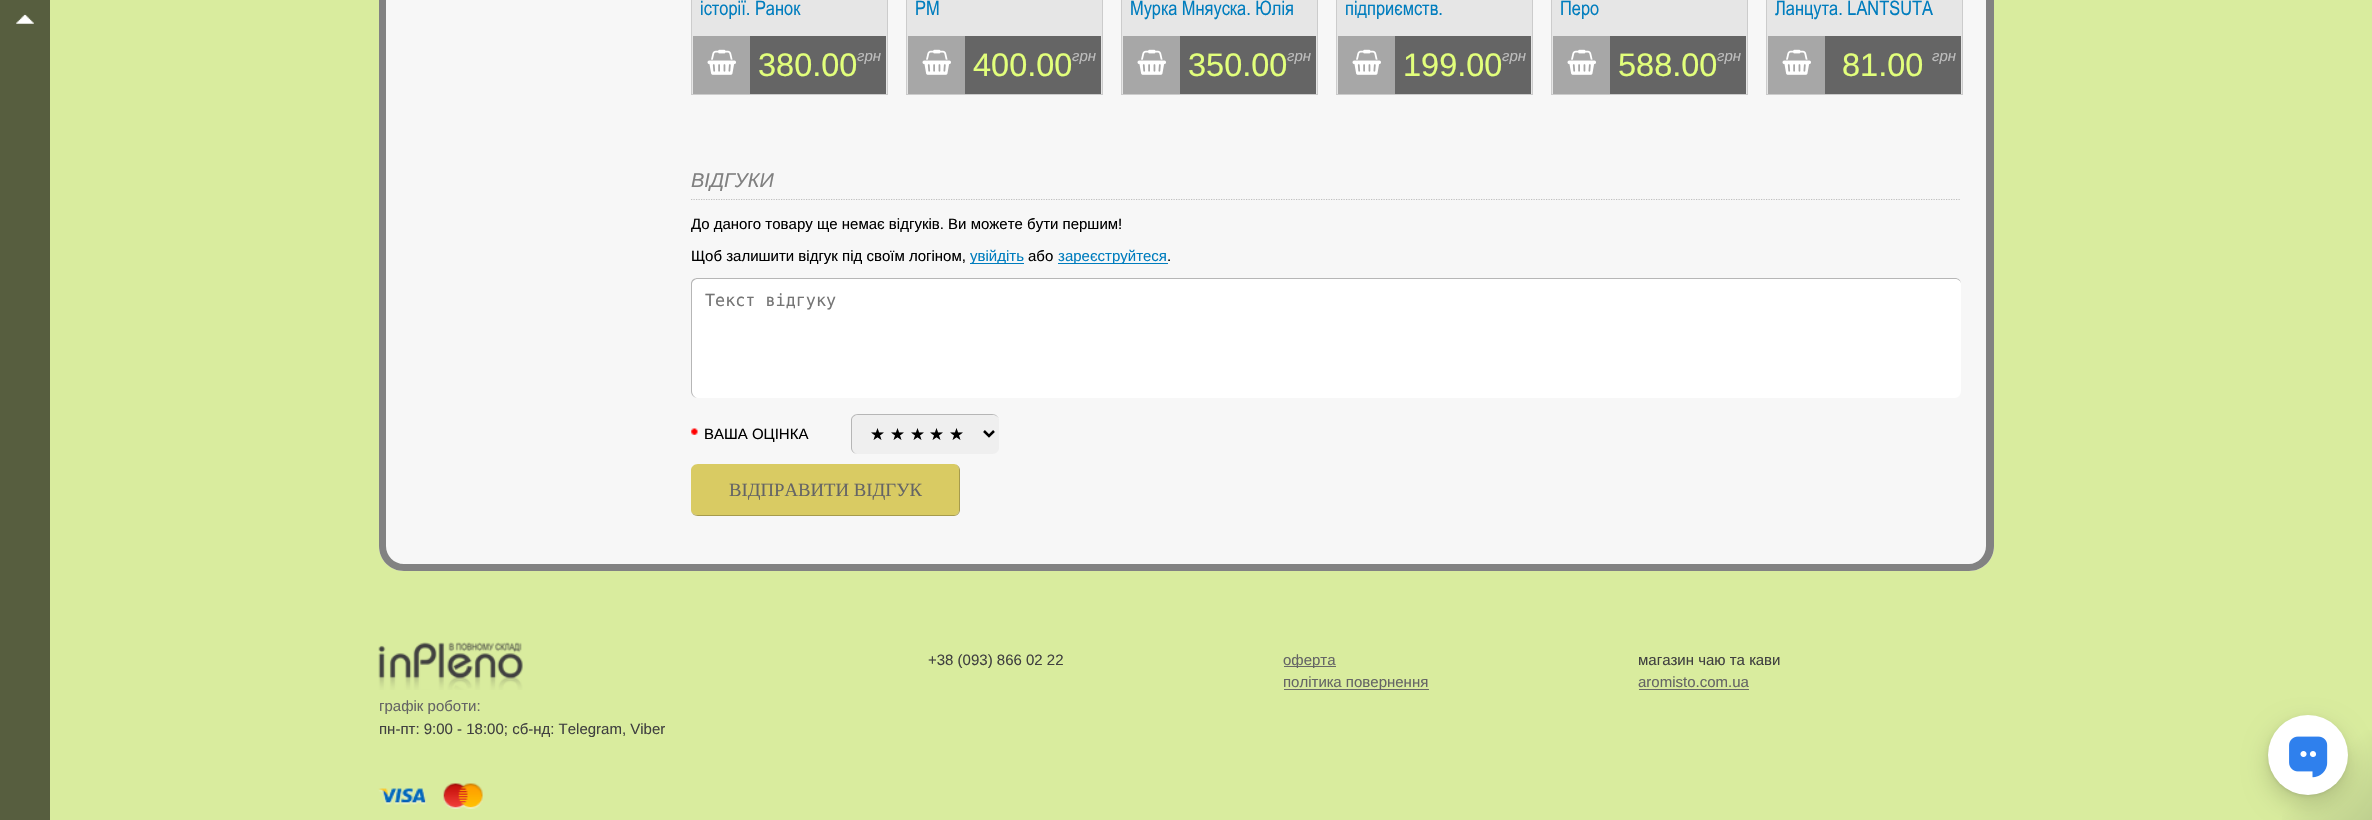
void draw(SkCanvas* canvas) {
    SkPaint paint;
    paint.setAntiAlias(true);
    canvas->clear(0xFFD9EC9E);
    paint.setColor(0xFF575E3F);
    canvas->drawRect(SkRect::MakeXYWH(0, 0, 50, 820), paint);
    canvas->drawImageRect(SkImages::DeferredFromEncodedData(SkData::MakeFromFileName("img1.png")), SkRect::MakeXYWH(16, 14, 18, 10), SkSamplingOptions());
    paint.setColor(0xFFF7F7F7);
    canvas->drawPath(SkPathBuilder().moveTo(379, -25).lineTo(1994, -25).lineTo(1994, 546).cubicTo(1994, 560, 1983, 571, 1969, 571).lineTo(404, 571).cubicTo(390, 571, 379, 560, 379, 546).close().detach(), paint);
    paint.setColor(0xFF828282);
    canvas->drawPath(SkPathBuilder(SkPathFillType::kEvenOdd).moveTo(379, -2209).lineTo(1994, -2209).lineTo(1994, 546).cubicTo(1994, 560, 1983, 571, 1969, 571).lineTo(404, 571).cubicTo(390, 571, 379, 560, 379, 546).close().moveTo(386, -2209).lineTo(1986, -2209).lineTo(1986, 546).cubicTo(1986, 556, 1978, 564, 1969, 564).lineTo(404, 564).cubicTo(394, 564, 386, 556, 386, 546).close().detach(), paint);
    paint.setColor(0xFFE6E6E6);
    canvas->drawRect(SkRect::MakeXYWH(691.5f, -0.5f, 196, 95), paint);
    paint.setStyle(SkPaint::kStroke_Style);
    paint.setStrokeWidth(1);
    paint.setColor(0xFFCCCCCC);
    canvas->drawRect(SkRect::MakeXYWH(691.5f, -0.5f, 196, 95), paint);
    SkFont font1(fontMgr->matchFamilyStyle("Arial", SkFontStyle::Normal()), 20);
    font1.setSubpixel(true);
    paint.setStyle(SkPaint::kFill_Style);
    paint.setColor(0xFF007DBE);
    canvas->drawString("історії. Ранок", 700, 15, font1, paint);
    paint.setColor(0xFFA7A7A7);
    canvas->drawRect(SkRect::MakeXYWH(693, 36, 57, 58), paint);
    canvas->drawImageRect(SkImages::DeferredFromEncodedData(SkData::MakeFromFileName("img2.png")), SkRect::MakeXYWH(707, 49, 29, 26), SkSamplingOptions());
    paint.setColor(0xFF656565);
    canvas->drawRect(SkRect::MakeXYWH(750, 36, 136, 58), paint);
    SkFont font2(fontMgr->matchFamilyStyle("Liberation Sans", SkFontStyle::Normal()), 32.5f);
    font2.setSubpixel(true);
    paint.setColor(0xFFE2FF7B);
    canvas->drawString("380.00", 758, 76, font2, paint);
    SkFont font3(fontMgr->matchFamilyStyle("Liberation Sans", SkFontStyle::Italic()), 15);
    font3.setSubpixel(true);
    paint.setColor(0xFFBDBDBD);
    canvas->drawString("грн", 857, 61, font3, paint);
    paint.setColor(0xFFE6E6E6);
    canvas->drawRect(SkRect::MakeXYWH(906.5f, -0.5f, 196, 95), paint);
    paint.setStyle(SkPaint::kStroke_Style);
    paint.setColor(0xFFCCCCCC);
    canvas->drawRect(SkRect::MakeXYWH(906.5f, -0.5f, 196, 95), paint);
    paint.setStyle(SkPaint::kFill_Style);
    paint.setColor(0xFF007DBE);
    canvas->drawString("РМ", 915, 15, font1, paint);
    paint.setColor(0xFFA7A7A7);
    canvas->drawRect(SkRect::MakeXYWH(908, 36, 57, 58), paint);
    canvas->drawImageRect(SkImages::DeferredFromEncodedData(SkData::MakeFromFileName("img2.png")), SkRect::MakeXYWH(922, 49, 29, 26), SkSamplingOptions());
    paint.setColor(0xFF656565);
    canvas->drawRect(SkRect::MakeXYWH(965, 36, 136, 58), paint);
    paint.setColor(0xFFE2FF7B);
    canvas->drawString("400.00", 973, 76, font2, paint);
    paint.setColor(0xFFBDBDBD);
    canvas->drawString("грн", 1072, 61, font3, paint);
    paint.setColor(0xFFE6E6E6);
    canvas->drawRect(SkRect::MakeXYWH(1121.5f, -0.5f, 196, 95), paint);
    paint.setStyle(SkPaint::kStroke_Style);
    paint.setColor(0xFFCCCCCC);
    canvas->drawRect(SkRect::MakeXYWH(1121.5f, -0.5f, 196, 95), paint);
    paint.setStyle(SkPaint::kFill_Style);
    paint.setColor(0xFF007DBE);
    canvas->drawString("Мурка Мняуска. Юлія", 1130, 15, font1, paint);
    paint.setColor(0xFFA7A7A7);
    canvas->drawRect(SkRect::MakeXYWH(1123, 36, 57, 58), paint);
    canvas->drawImageRect(SkImages::DeferredFromEncodedData(SkData::MakeFromFileName("img2.png")), SkRect::MakeXYWH(1137, 49, 29, 26), SkSamplingOptions());
    paint.setColor(0xFF656565);
    canvas->drawRect(SkRect::MakeXYWH(1180, 36, 136, 58), paint);
    paint.setColor(0xFFE2FF7B);
    canvas->drawString("350.00", 1188, 76, font2, paint);
    paint.setColor(0xFFBDBDBD);
    canvas->drawString("грн", 1287, 61, font3, paint);
    paint.setColor(0xFFE6E6E6);
    canvas->drawRect(SkRect::MakeXYWH(1336.5f, -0.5f, 196, 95), paint);
    paint.setStyle(SkPaint::kStroke_Style);
    paint.setColor(0xFFCCCCCC);
    canvas->drawRect(SkRect::MakeXYWH(1336.5f, -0.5f, 196, 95), paint);
    paint.setStyle(SkPaint::kFill_Style);
    paint.setColor(0xFF007DBE);
    canvas->drawString("підприємств.", 1345, 15, font1, paint);
    paint.setColor(0xFFA7A7A7);
    canvas->drawRect(SkRect::MakeXYWH(1338, 36, 57, 58), paint);
    canvas->drawImageRect(SkImages::DeferredFromEncodedData(SkData::MakeFromFileName("img2.png")), SkRect::MakeXYWH(1352, 49, 29, 26), SkSamplingOptions());
    paint.setColor(0xFF656565);
    canvas->drawRect(SkRect::MakeXYWH(1395, 36, 136, 58), paint);
    paint.setColor(0xFFE2FF7B);
    canvas->drawString("199.00", 1403, 76, font2, paint);
    paint.setColor(0xFFBDBDBD);
    canvas->drawString("грн", 1502, 61, font3, paint);
    paint.setColor(0xFFE6E6E6);
    canvas->drawRect(SkRect::MakeXYWH(1551.5f, -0.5f, 196, 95), paint);
    paint.setStyle(SkPaint::kStroke_Style);
    paint.setColor(0xFFCCCCCC);
    canvas->drawRect(SkRect::MakeXYWH(1551.5f, -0.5f, 196, 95), paint);
    paint.setStyle(SkPaint::kFill_Style);
    paint.setColor(0xFF007DBE);
    canvas->drawString("Перо", 1560, 15, font1, paint);
    paint.setColor(0xFFA7A7A7);
    canvas->drawRect(SkRect::MakeXYWH(1553, 36, 57, 58), paint);
    canvas->drawImageRect(SkImages::DeferredFromEncodedData(SkData::MakeFromFileName("img2.png")), SkRect::MakeXYWH(1567, 49, 29, 26), SkSamplingOptions());
    paint.setColor(0xFF656565);
    canvas->drawRect(SkRect::MakeXYWH(1610, 36, 136, 58), paint);
    paint.setColor(0xFFE2FF7B);
    canvas->drawString("588.00", 1618, 76, font2, paint);
    paint.setColor(0xFFBDBDBD);
    canvas->drawString("грн", 1717, 61, font3, paint);
    paint.setColor(0xFFE6E6E6);
    canvas->drawRect(SkRect::MakeXYWH(1766.5f, -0.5f, 196, 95), paint);
    paint.setStyle(SkPaint::kStroke_Style);
    paint.setColor(0xFFCCCCCC);
    canvas->drawRect(SkRect::MakeXYWH(1766.5f, -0.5f, 196, 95), paint);
    paint.setStyle(SkPaint::kFill_Style);
    paint.setColor(0xFF007DBE);
    canvas->drawString("Ланцута. LANTSUTA", 1775, 15, font1, paint);
    paint.setColor(0xFFA7A7A7);
    canvas->drawRect(SkRect::MakeXYWH(1768, 36, 57, 58), paint);
    canvas->drawImageRect(SkImages::DeferredFromEncodedData(SkData::MakeFromFileName("img2.png")), SkRect::MakeXYWH(1782, 49, 29, 26), SkSamplingOptions());
    paint.setColor(0xFF656565);
    canvas->drawRect(SkRect::MakeXYWH(1825, 36, 136, 58), paint);
    paint.setColor(0xFFE2FF7B);
    canvas->drawString("81.00", 1842, 76, font2, paint);
    paint.setColor(0xFFBDBDBD);
    canvas->drawString("грн", 1932, 61, font3, paint);
    paint.setStyle(SkPaint::kStroke_Style);
    paint.setStrokeWidth(1.2f);
    paint.setColor(0xFFBFBFBF);
    paint.setPathEffect(SkDashPathEffect::Make({{1.25f, 1.25f}}, 0));
    canvas->drawPath(SkPathBuilder().moveTo(691, 199.5f).lineTo(1961, 199.5f).detach(), paint);
    paint.setPathEffect(nullptr);
    SkFont font4(fontMgr->matchFamilyStyle("Liberation Sans", SkFontStyle::Italic()), 20);
    font4.setSubpixel(true);
    paint.setStyle(SkPaint::kFill_Style);
    paint.setColor(0xFF808080);
    canvas->drawString("ВІДГУКИ", 691, 187, font4, paint);
    SkFont font5(fontMgr->matchFamilyStyle("Liberation Sans", SkFontStyle::Normal()), 15);
    font5.setSubpixel(true);
    paint.setColor(0xFF000000);
    canvas->drawString("До даного товару ще немає відгуків. Ви можете бути першим!", 691, 229, font5, paint);
    canvas->drawString("Щоб залишити відгук під своїм логіном,", 691, 261, font5, paint);
    paint.setColor(0xFF007DBE);
    canvas->drawRect(SkRect::MakeXYWH(970, 263, 54, 1), paint);
    canvas->drawString("увійдіть", 970, 261, font5, paint);
    paint.setColor(0xFF000000);
    canvas->drawString("або", 1028, 261, font5, paint);
    paint.setColor(0xFF007DBE);
    canvas->drawRect(SkRect::MakeXYWH(1058, 263, 110, 1), paint);
    canvas->drawString("зареєструйтеся", 1058, 261, font5, paint);
    paint.setColor(0xFF000000);
    canvas->drawString(".", 1167, 261, font5, paint);
    paint.setColor(0xFFFFFFFF);
    canvas->drawPath(SkPathBuilder().moveTo(698, 279).lineTo(1955, 279).cubicTo(1958, 279, 1961, 281, 1961, 284).lineTo(1961, 391).cubicTo(1961, 395, 1958, 398, 1955, 398).lineTo(698, 398).cubicTo(695, 398, 692, 395, 692, 391).lineTo(692, 284).cubicTo(692, 281, 695, 279, 698, 279).close().detach(), paint);
    paint.setColor(0xFFB6B6B6);
    canvas->drawPath(SkPathBuilder(SkPathFillType::kEvenOdd).moveTo(698, 278).lineTo(1955, 278).cubicTo(1958, 278, 1961, 280, 1961, 284).lineTo(1961, 391).cubicTo(1961, 395, 1958, 398, 1955, 398).lineTo(698, 398).cubicTo(694, 398, 691, 395, 691, 391).lineTo(691, 284).cubicTo(691, 280, 694, 278, 698, 278).close().moveTo(698, 279).lineTo(1955, 279).cubicTo(1958, 279, 1961, 281, 1961, 284).lineTo(1961, 391).cubicTo(1961, 395, 1958, 398, 1955, 398).lineTo(698, 398).cubicTo(695, 398, 692, 395, 692, 391).lineTo(692, 284).cubicTo(692, 281, 695, 279, 698, 279).close().detach(), paint);
    SkFont font6(fontMgr->matchFamilyStyle("DejaVu Sans Mono", SkFontStyle::Normal()), 16.75f);
    font6.setSubpixel(true);
    paint.setColor(0xFF757575);
    canvas->drawString("Текст відгуку", 705, 306, font6, paint);
    canvas->drawImageRect(SkImages::DeferredFromEncodedData(SkData::MakeFromFileName("img3.png")), SkRect::MakeXYWH(691, 428, 7, 7), SkSamplingOptions());
    paint.setColor(0xFF000000);
    canvas->drawString("ВАША ОЦІНКА", 704, 439, font5, paint);
    paint.setColor(0xFFEFEFEF);
    canvas->drawPath(SkPathBuilder().moveTo(858, 415).lineTo(992, 415).cubicTo(996, 415, 999, 417, 999, 420).lineTo(999, 448).cubicTo(999, 451, 996, 454, 992, 454).lineTo(858, 454).cubicTo(855, 454, 852, 451, 852, 448).lineTo(852, 420).cubicTo(852, 417, 855, 415, 858, 415).close().detach(), paint);
    paint.setColor(0xFFB6B6B6);
    canvas->drawPath(SkPathBuilder(SkPathFillType::kEvenOdd).moveTo(858, 414).lineTo(992, 414).cubicTo(996, 414, 999, 417, 999, 420).lineTo(999, 448).cubicTo(999, 451, 996, 454, 992, 454).lineTo(858, 454).cubicTo(854, 454, 851, 451, 851, 448).lineTo(851, 420).cubicTo(851, 417, 854, 414, 858, 414).close().moveTo(858, 415).lineTo(992, 415).cubicTo(996, 415, 999, 417, 999, 420).lineTo(999, 448).cubicTo(999, 451, 996, 454, 992, 454).lineTo(858, 454).cubicTo(855, 454, 852, 451, 852, 448).lineTo(852, 420).cubicTo(852, 417, 855, 415, 858, 415).close().detach(), paint);
    paint.setStyle(SkPaint::kStroke_Style);
    paint.setStrokeWidth(2.5f);
    paint.setColor(0xFF000000);
    canvas->drawPath(SkPathBuilder().moveTo(984, 431).lineTo(989, 436).lineTo(994, 431).detach(), paint);
    SkFont font7(fontMgr->matchFamilyStyle("DejaVu Sans", SkFontStyle::Normal()), 16.75f);
    font7.setSubpixel(true);
    paint.setStyle(SkPaint::kFill_Style);
    canvas->drawString("★", 870, 440, font7, paint);
    canvas->drawString("★", 890, 440, font7, paint);
    canvas->drawString("★", 910, 440, font7, paint);
    canvas->drawString("★", 929, 440, font7, paint);
    canvas->drawString("★", 949, 440, font7, paint);
    paint.setColor(0xFFD9CB63);
    canvas->drawPath(SkPathBuilder().moveTo(698, 464).lineTo(954, 464).cubicTo(957, 464, 959, 467, 959, 470).lineTo(959, 510).cubicTo(959, 513, 957, 515, 954, 515).lineTo(698, 515).cubicTo(694, 515, 691, 513, 691, 510).lineTo(691, 470).cubicTo(691, 467, 694, 464, 698, 464).close().detach(), paint);
    paint.setColor(0xFFA69B4C);
    canvas->drawPath(SkPathBuilder(SkPathFillType::kEvenOdd).moveTo(698, 464).lineTo(954, 464).cubicTo(957, 464, 960, 467, 960, 470).lineTo(960, 510).cubicTo(960, 513, 957, 516, 954, 516).lineTo(698, 516).cubicTo(694, 516, 691, 513, 691, 510).lineTo(691, 470).cubicTo(691, 467, 694, 464, 698, 464).close().moveTo(698, 464).lineTo(954, 464).cubicTo(957, 464, 959, 467, 959, 470).lineTo(959, 510).cubicTo(959, 513, 957, 515, 954, 515).lineTo(698, 515).cubicTo(694, 515, 691, 513, 691, 510).lineTo(691, 470).cubicTo(691, 467, 694, 464, 698, 464).close().detach(), paint);
    SkFont font8(fontMgr->matchFamilyStyle("Liberation Serif", SkFontStyle::Normal()), 18.75f);
    font8.setSubpixel(true);
    paint.setColor(0xFF656565);
    canvas->drawString("ВІДПРАВИТИ ВІДГУК", 729, 496, font8, paint);
    paint.setColor(0xFF404040);
    canvas->drawString("+38 (093) 866 02 22", 928, 665, font5, paint);
    paint.setColor(0xFF686868);
    canvas->drawRect(SkRect::MakeXYWH(1284, 666, 52, 1), paint);
    paint.setColor(0xFF656565);
    canvas->drawString("оферта", 1283, 665, font5, paint);
    paint.setColor(0xFF686868);
    canvas->drawRect(SkRect::MakeXYWH(1284, 689, 145, 1), paint);
    paint.setColor(0xFF656565);
    canvas->drawString("політика повернення", 1283, 687, font5, paint);
    paint.setColor(0xFF404040);
    canvas->drawString("магазин чаю та кави", 1638, 665, font5, paint);
    paint.setColor(0xFF656565);
    canvas->drawString("aromisto.com.ua", 1638, 687, font5, paint);
    paint.setColor(0xFF686868);
    canvas->drawRect(SkRect::MakeXYWH(1639, 689, 110, 1), paint);
    canvas->drawImageRect(SkImages::DeferredFromEncodedData(SkData::MakeFromFileName("img4.png")), SkRect::MakeXYWH(378, 642, 145, 48), SkSamplingOptions());
    paint.setColor(0xFF656565);
    canvas->drawString("графік роботи:", 379, 711, font5, paint);
    paint.setColor(0xFF404040);
    canvas->drawString("пн-пт: 9:00 - 18:00; сб-нд: Telegram, Viber", 379, 734, font5, paint);
    canvas->drawImageRect(SkImages::DeferredFromEncodedData(SkData::MakeFromFileName("img5.png")), SkRect::MakeXYWH(378, 788, 48, 17), SkSamplingOptions());
    canvas->drawImageRect(SkImages::DeferredFromEncodedData(SkData::MakeFromFileName("img6.png")), SkRect::MakeXYWH(443, 783, 40, 26), SkSamplingOptions());
    {
        const SkColor colors[] = {0xFFD9EC9E, 0xFFB0C087};
        const float stops[] = {0.5f, 1};
        const SkPoint ends[] = {{2248, 695}, {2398, 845}};
        paint.setShader(SkGradientShader::MakeLinear(ends, colors, stops, 2, SkTileMode::kClamp));
        paint.setAlpha(255);
    }
    canvas->drawRect(SkRect::MakeXYWH(2282, 730, 90, 90), paint);
    paint.setShader(nullptr);
    paint.setColor(0x29000000);
    paint.setMaskFilter(SkMaskFilter::MakeBlur(kNormal_SkBlurStyle, 12.5f));
    canvas->drawRoundRect(SkRect::MakeXYWH(2268, 725, 80, 80), 40, 40, paint);
    paint.setMaskFilter(nullptr);
    paint.setColor(0x52000000);
    paint.setMaskFilter(SkMaskFilter::MakeBlur(kNormal_SkBlurStyle, 3));
    canvas->drawRoundRect(SkRect::MakeXYWH(2271, 720, 73, 73), 36.5f, 36.5f, paint);
    paint.setMaskFilter(nullptr);
    paint.setColor(0xFFFFFFFF);
    canvas->drawCircle(2308, 755, 40, paint);
    canvas->drawImageRect(SkImages::DeferredFromEncodedData(SkData::MakeFromFileName("img7.png")), SkRect::MakeXYWH(2289, 736, 39, 42), SkSamplingOptions());
}
